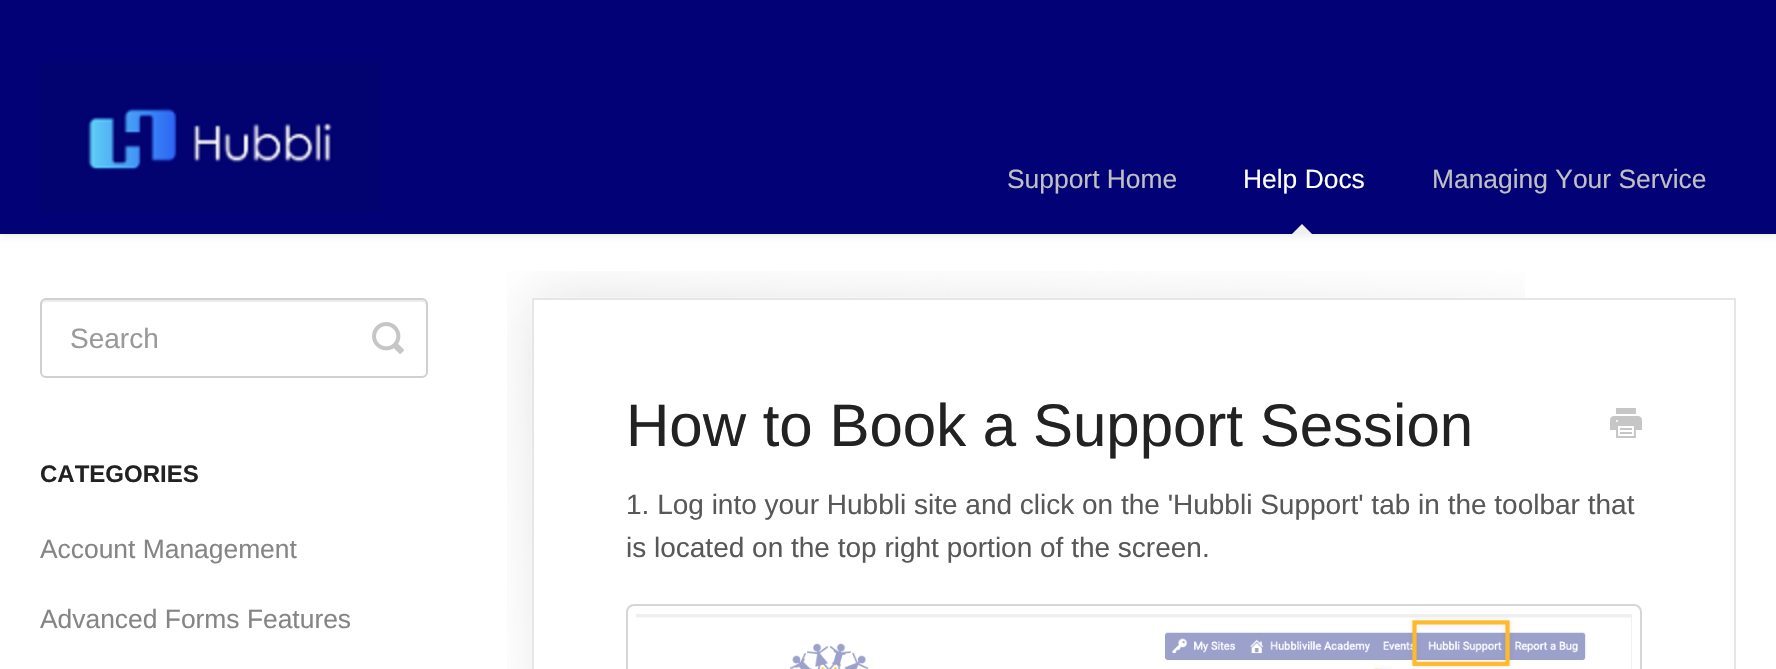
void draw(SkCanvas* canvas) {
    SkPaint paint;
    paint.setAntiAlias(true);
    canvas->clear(0xFFFFFFFF);
    paint.setColor(0x12000000);
    paint.setMaskFilter(SkMaskFilter::MakeBlur(kNormal_SkBlurStyle, 4));
    canvas->drawRect(SkRect::MakeXYWH(0, 2, 1776, 234), paint);
    paint.setMaskFilter(nullptr);
    paint.setColor(0xFF020276);
    canvas->drawRect(SkRect::MakeXYWH(0, 0, 1776, 234), paint);
    canvas->drawImageRect(SkImages::DeferredFromEncodedData(SkData::MakeFromFileName("img1.png")), SkRect::MakeXYWH(40, 62, 340, 150), SkSamplingOptions());
    SkFont font1(fontMgr->matchFamilyStyle("Liberation Sans", SkFontStyle::Normal()), 26.4f);
    font1.setSubpixel(true);
    paint.setColor(0xFFC0C0C0);
    canvas->drawString("Support Home", 1007, 188, font1, paint);
    paint.setColor(0xFFFFFFFF);
    canvas->drawString("Help Docs", 1243, 188, font1, paint);
    paint.setColor(0xFFF0F0F0);
    canvas->drawPath(SkPathBuilder().moveTo(1312, 234).lineTo(1292, 234).lineTo(1302, 224).close().detach(), paint);
    paint.setColor(0xFFC0C0C0);
    canvas->drawString("Managing Your Service", 1432, 188, font1, paint);
    paint.setColor(0xFFECECEC);
    canvas->drawPath(SkPathBuilder().moveTo(46, 302).lineTo(422, 302).cubicTo(424, 302, 426, 304, 426, 306).lineTo(426, 304).cubicTo(426, 302, 424, 300, 422, 300).lineTo(46, 300).cubicTo(44, 300, 42, 302, 42, 304).lineTo(42, 306).cubicTo(42, 304, 44, 302, 46, 302).close().detach(), paint);
    paint.setStyle(SkPaint::kStroke_Style);
    paint.setStrokeWidth(2);
    paint.setColor(0xFFD0D0D0);
    canvas->drawRoundRect(SkRect::MakeXYWH(41, 299, 386, 78), 5, 5, paint);
    SkFont font2(fontMgr->matchFamilyStyle("Liberation Sans", SkFontStyle::Normal()), 28);
    font2.setSubpixel(true);
    paint.setStyle(SkPaint::kFill_Style);
    paint.setColor(0xFF999999);
    canvas->drawString("Search", 70, 348, font2, paint);
    canvas->drawImageRect(SkImages::DeferredFromEncodedData(SkData::MakeFromFileName("img2.png")), SkRect::MakeXYWH(372, 322, 32, 32), SkSamplingOptions());
    SkFont font3(fontMgr->matchFamilyStyle("Liberation Sans", SkFontStyle::Bold()), 24);
    font3.setSubpixel(true);
    paint.setColor(0xFF222222);
    canvas->drawString("CATEGORIES", 40, 482, font3, paint);
    paint.setColor(0xFF858585);
    canvas->drawString("Account Management", 40, 558, font1, paint);
    canvas->drawString("Advanced Forms Features", 40, 628, font1, paint);
    canvas->drawImageRect(SkImages::DeferredFromEncodedData(SkData::MakeFromFileName("img3.png")), SkRect::MakeXYWH(507, 271, 1018, 398), SkSamplingOptions());
    paint.setStyle(SkPaint::kStroke_Style);
    paint.setColor(0xFFE9E5E5);
    canvas->drawRect(SkRect::MakeXYWH(533, 299, 1202, 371), paint);
    SkFont font4(fontMgr->matchFamilyStyle("Liberation Sans", SkFontStyle::Normal()), 60);
    font4.setSubpixel(true);
    paint.setStyle(SkPaint::kFill_Style);
    paint.setColor(0xFF222222);
    canvas->drawString("How to Book a Support Session", 626, 446, font4, paint);
    canvas->drawImageRect(SkImages::DeferredFromEncodedData(SkData::MakeFromFileName("img4.png")), SkRect::MakeXYWH(1610, 408, 32, 30), SkSamplingOptions());
    paint.setColor(0xFF585858);
    canvas->drawString("1. Log into your Hubbli site and click on the 'Hubbli Support' tab in the toolbar that", 626, 514, font2, paint);
    canvas->drawString("is located on the top right portion of the screen.", 626, 557, font2, paint);
    paint.setStyle(SkPaint::kStroke_Style);
    paint.setColor(0xFFD6D6D6);
    canvas->drawRoundRect(SkRect::MakeXYWH(627, 605, 1014, 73), 7, 7, paint);
    canvas->drawImageRect(SkImages::DeferredFromEncodedData(SkData::MakeFromFileName("img5.png")), SkRect::MakeXYWH(636, 614, 996, 55), SkSamplingOptions());
}
